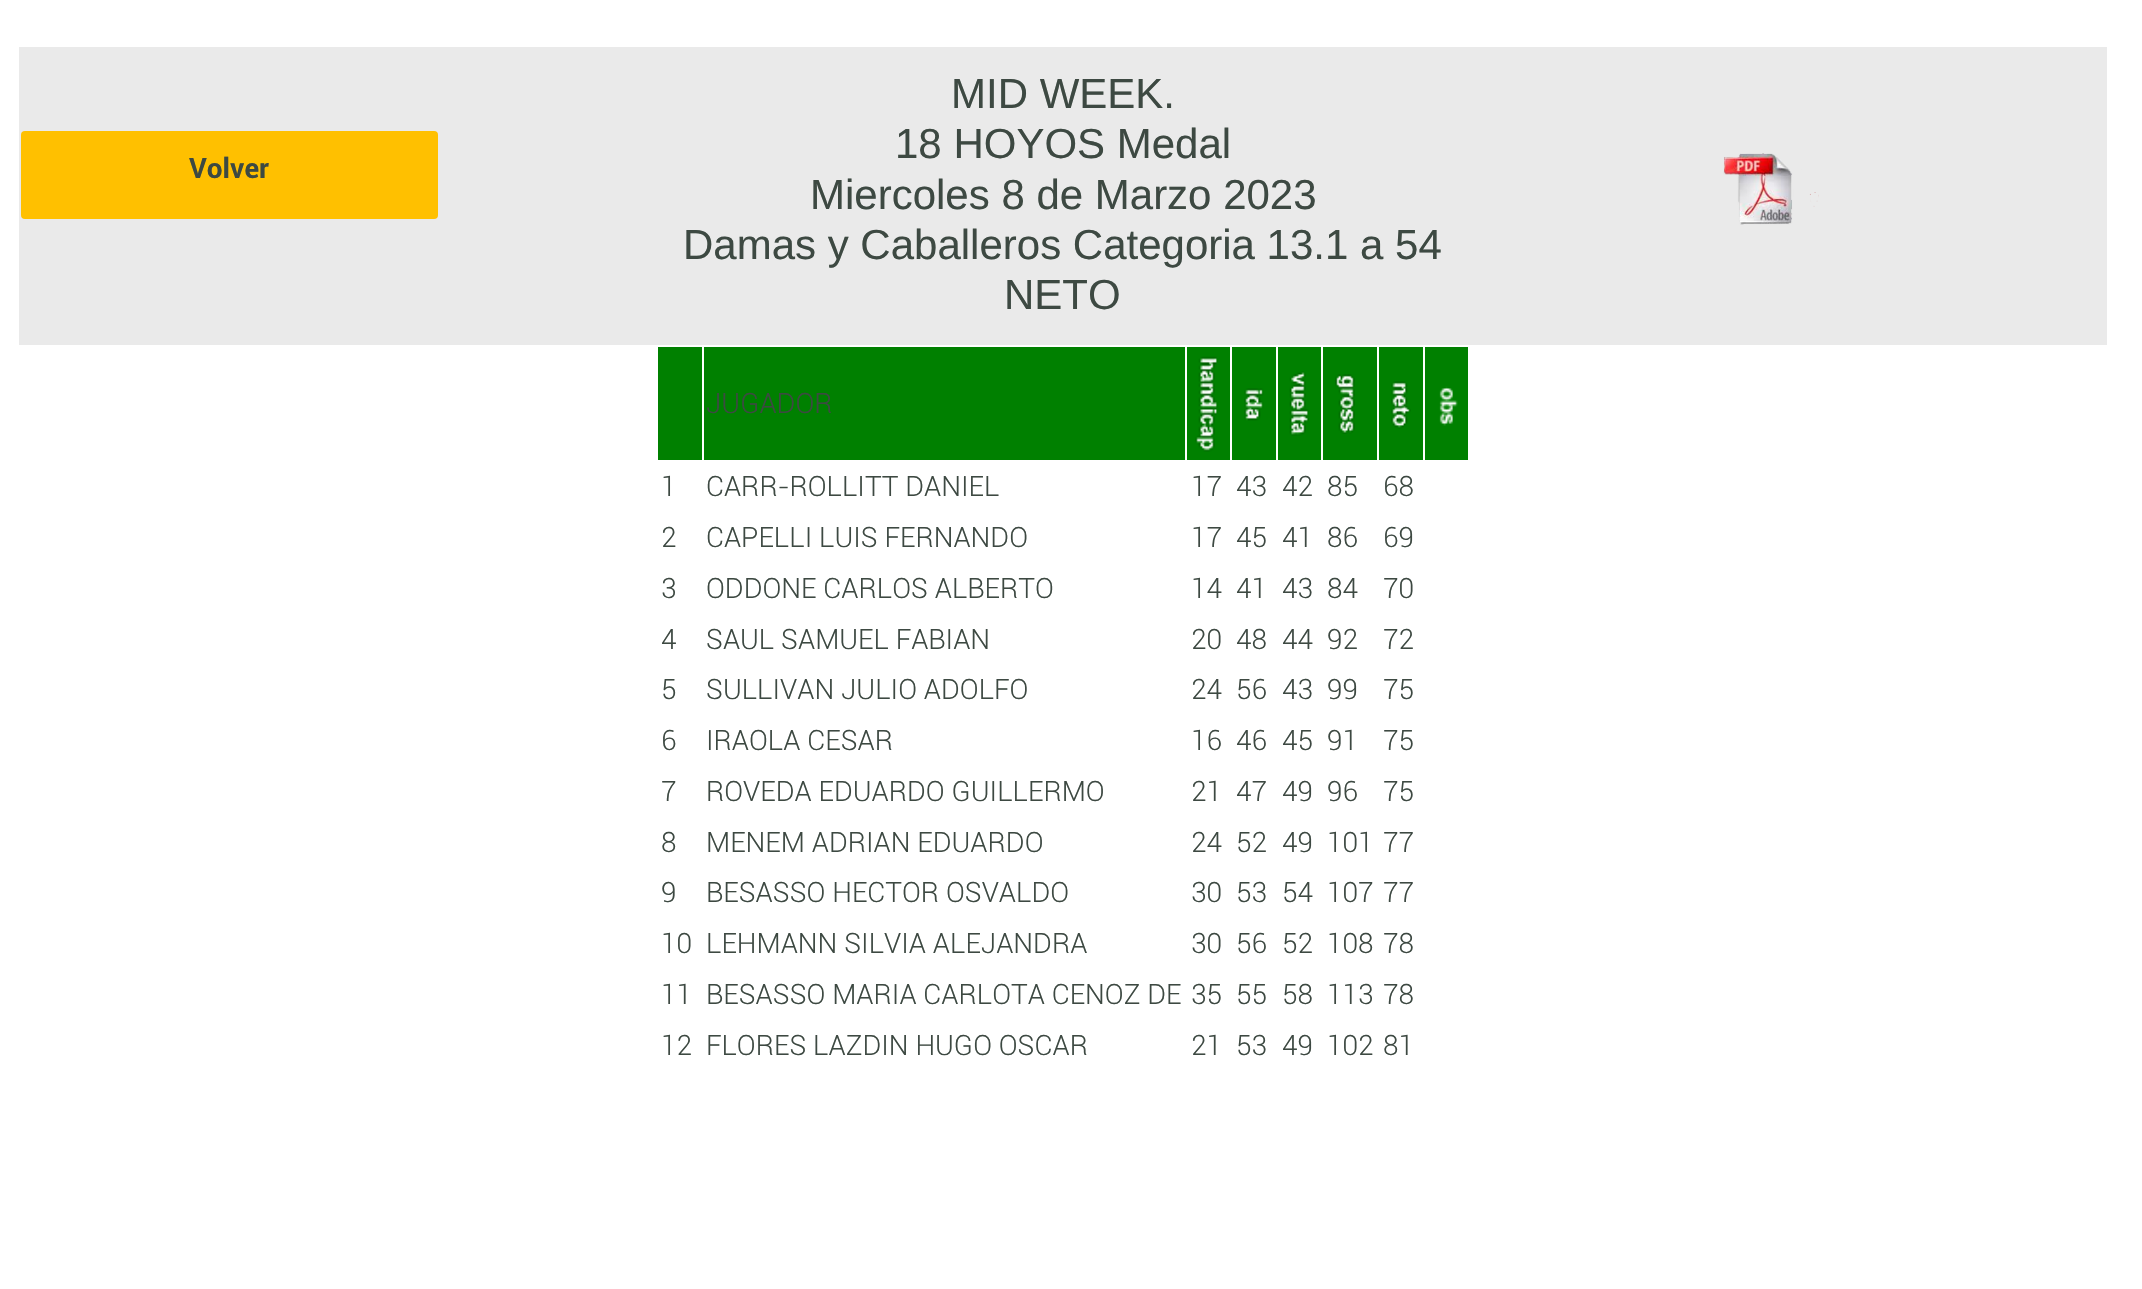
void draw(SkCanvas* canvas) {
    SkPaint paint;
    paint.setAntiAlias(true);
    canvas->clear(0xFFFFFFFF);
    paint.setColor(0xFFEAEAEA);
    canvas->drawRect(SkRect::MakeXYWH(19, 47, 2088, 298), paint);
    paint.setColor(0xFFFFC000);
    canvas->drawRoundRect(SkRect::MakeXYWH(21, 131, 417, 88), 4, 4, paint);
    SkFont font1(fontMgr->matchFamilyStyle("Roboto", SkFontStyle::Bold()), 28);
    font1.setSubpixel(true);
    paint.setColor(0xFF3D4942);
    canvas->drawString("Volver", 189, 178, font1, paint);
    SkFont font2(fontMgr->matchFamilyStyle("Liberation Sans", SkFontStyle::Normal()), 42);
    font2.setSubpixel(true);
    canvas->drawString("MID WEEK.", 951, 108, font2, paint);
    canvas->drawString("18 HOYOS Medal", 895, 158, font2, paint);
    canvas->drawString("Miercoles 8 de Marzo 2023", 810, 209, font2, paint);
    canvas->drawString("Damas y Caballeros Categoria 13.1 a 54", 683, 259, font2, paint);
    canvas->drawString("NETO", 1004, 309, font2, paint);
    canvas->drawImageRect(SkImages::DeferredFromEncodedData(SkData::MakeFromFileName("img1.png")), SkRect::MakeXYWH(1723, 153, 96, 72), SkSamplingOptions());
    paint.setColor(0xFF008000);
    canvas->drawRect(SkRect::MakeXYWH(658, 347, 44, 113), paint);
    canvas->drawRect(SkRect::MakeXYWH(704, 347, 481, 113), paint);
    SkFont font3(fontMgr->matchFamilyStyle("Roboto", SkFontStyle(300, SkFontStyle::kNormal_Width, SkFontStyle::kUpright_Slant)), 28);
    font3.setSubpixel(true);
    paint.setColor(0xFF3D4942);
    canvas->drawString("JUGADOR", 706, 413, font3, paint);
    paint.setColor(0xFF008000);
    canvas->drawRect(SkRect::MakeXYWH(1187, 347, 43, 113), paint);
    canvas->drawImageRect(SkImages::DeferredFromEncodedData(SkData::MakeFromFileName("img2.png")), SkRect::MakeXYWH(1195, 356, 25, 96), SkSamplingOptions());
    canvas->drawRect(SkRect::MakeXYWH(1232, 347, 44, 113), paint);
    canvas->drawImageRect(SkImages::DeferredFromEncodedData(SkData::MakeFromFileName("img3.png")), SkRect::MakeXYWH(1244, 388, 20, 33), SkSamplingOptions());
    canvas->drawRect(SkRect::MakeXYWH(1278, 347, 43, 113), paint);
    canvas->drawImageRect(SkImages::DeferredFromEncodedData(SkData::MakeFromFileName("img4.png")), SkRect::MakeXYWH(1289, 371, 20, 65), SkSamplingOptions());
    canvas->drawRect(SkRect::MakeXYWH(1323, 347, 54, 113), paint);
    canvas->drawImageRect(SkImages::DeferredFromEncodedData(SkData::MakeFromFileName("img5.png")), SkRect::MakeXYWH(1335, 374, 20, 60), SkSamplingOptions());
    canvas->drawRect(SkRect::MakeXYWH(1379, 347, 44, 113), paint);
    canvas->drawImageRect(SkImages::DeferredFromEncodedData(SkData::MakeFromFileName("img6.png")), SkRect::MakeXYWH(1391, 381, 20, 48), SkSamplingOptions());
    canvas->drawRect(SkRect::MakeXYWH(1425, 347, 43, 113), paint);
    canvas->drawImageRect(SkImages::DeferredFromEncodedData(SkData::MakeFromFileName("img7.png")), SkRect::MakeXYWH(1439, 386, 19, 40), SkSamplingOptions());
    paint.setColor(0xFF3D4942);
    canvas->drawString("1", 661, 496, font3, paint);
    canvas->drawString("CARR-ROLLITT DANIEL", 706, 496, font3, paint);
    canvas->drawString("17", 1191, 496, font3, paint);
    canvas->drawString("43", 1236, 496, font3, paint);
    canvas->drawString("42", 1282, 496, font3, paint);
    canvas->drawString("85", 1327, 496, font3, paint);
    canvas->drawString("68", 1383, 496, font3, paint);
    canvas->drawString("2", 661, 547, font3, paint);
    canvas->drawString("CAPELLI LUIS FERNANDO", 706, 547, font3, paint);
    canvas->drawString("17", 1191, 547, font3, paint);
    canvas->drawString("45", 1236, 547, font3, paint);
    canvas->drawString("41", 1282, 547, font3, paint);
    canvas->drawString("86", 1327, 547, font3, paint);
    canvas->drawString("69", 1383, 547, font3, paint);
    canvas->drawString("3", 661, 598, font3, paint);
    canvas->drawString("ODDONE CARLOS ALBERTO", 706, 598, font3, paint);
    canvas->drawString("14", 1191, 598, font3, paint);
    canvas->drawString("41", 1236, 598, font3, paint);
    canvas->drawString("43", 1282, 598, font3, paint);
    canvas->drawString("84", 1327, 598, font3, paint);
    canvas->drawString("70", 1383, 598, font3, paint);
    canvas->drawString("4", 661, 649, font3, paint);
    canvas->drawString("SAUL SAMUEL FABIAN", 706, 649, font3, paint);
    canvas->drawString("20", 1191, 649, font3, paint);
    canvas->drawString("48", 1236, 649, font3, paint);
    canvas->drawString("44", 1282, 649, font3, paint);
    canvas->drawString("92", 1327, 649, font3, paint);
    canvas->drawString("72", 1383, 649, font3, paint);
    canvas->drawString("5", 661, 699, font3, paint);
    canvas->drawString("SULLIVAN JULIO ADOLFO", 706, 699, font3, paint);
    canvas->drawString("24", 1191, 699, font3, paint);
    canvas->drawString("56", 1236, 699, font3, paint);
    canvas->drawString("43", 1282, 699, font3, paint);
    canvas->drawString("99", 1327, 699, font3, paint);
    canvas->drawString("75", 1383, 699, font3, paint);
    canvas->drawString("6", 661, 750, font3, paint);
    canvas->drawString("IRAOLA CESAR", 706, 750, font3, paint);
    canvas->drawString("16", 1191, 750, font3, paint);
    canvas->drawString("46", 1236, 750, font3, paint);
    canvas->drawString("45", 1282, 750, font3, paint);
    canvas->drawString("91", 1327, 750, font3, paint);
    canvas->drawString("75", 1383, 750, font3, paint);
    canvas->drawString("7", 661, 801, font3, paint);
    canvas->drawString("ROVEDA EDUARDO GUILLERMO", 706, 801, font3, paint);
    canvas->drawString("21", 1191, 801, font3, paint);
    canvas->drawString("47", 1236, 801, font3, paint);
    canvas->drawString("49", 1282, 801, font3, paint);
    canvas->drawString("96", 1327, 801, font3, paint);
    canvas->drawString("75", 1383, 801, font3, paint);
    canvas->drawString("8", 661, 852, font3, paint);
    canvas->drawString("MENEM ADRIAN EDUARDO", 706, 852, font3, paint);
    canvas->drawString("24", 1191, 852, font3, paint);
    canvas->drawString("52", 1236, 852, font3, paint);
    canvas->drawString("49", 1282, 852, font3, paint);
    canvas->drawString("101", 1327, 852, font3, paint);
    canvas->drawString("77", 1383, 852, font3, paint);
    canvas->drawString("9", 661, 902, font3, paint);
    canvas->drawString("BESASSO HECTOR OSVALDO", 706, 902, font3, paint);
    canvas->drawString("30", 1191, 902, font3, paint);
    canvas->drawString("53", 1236, 902, font3, paint);
    canvas->drawString("54", 1282, 902, font3, paint);
    canvas->drawString("107", 1327, 902, font3, paint);
    canvas->drawString("77", 1383, 902, font3, paint);
    canvas->drawString("10", 661, 953, font3, paint);
    canvas->drawString("LEHMANN SILVIA ALEJANDRA", 706, 953, font3, paint);
    canvas->drawString("30", 1191, 953, font3, paint);
    canvas->drawString("56", 1236, 953, font3, paint);
    canvas->drawString("52", 1282, 953, font3, paint);
    canvas->drawString("108", 1327, 953, font3, paint);
    canvas->drawString("78", 1383, 953, font3, paint);
    canvas->drawString("11", 661, 1004, font3, paint);
    canvas->drawString("BESASSO MARIA CARLOTA CENOZ DE", 706, 1004, font3, paint);
    canvas->drawString("35", 1191, 1004, font3, paint);
    canvas->drawString("55", 1236, 1004, font3, paint);
    canvas->drawString("58", 1282, 1004, font3, paint);
    canvas->drawString("113", 1327, 1004, font3, paint);
    canvas->drawString("78", 1383, 1004, font3, paint);
    canvas->drawString("12", 661, 1055, font3, paint);
    canvas->drawString("FLORES LAZDIN HUGO OSCAR", 706, 1055, font3, paint);
    canvas->drawString("21", 1191, 1055, font3, paint);
    canvas->drawString("53", 1236, 1055, font3, paint);
    canvas->drawString("49", 1282, 1055, font3, paint);
    canvas->drawString("102", 1327, 1055, font3, paint);
    canvas->drawString("81", 1383, 1055, font3, paint);
}
